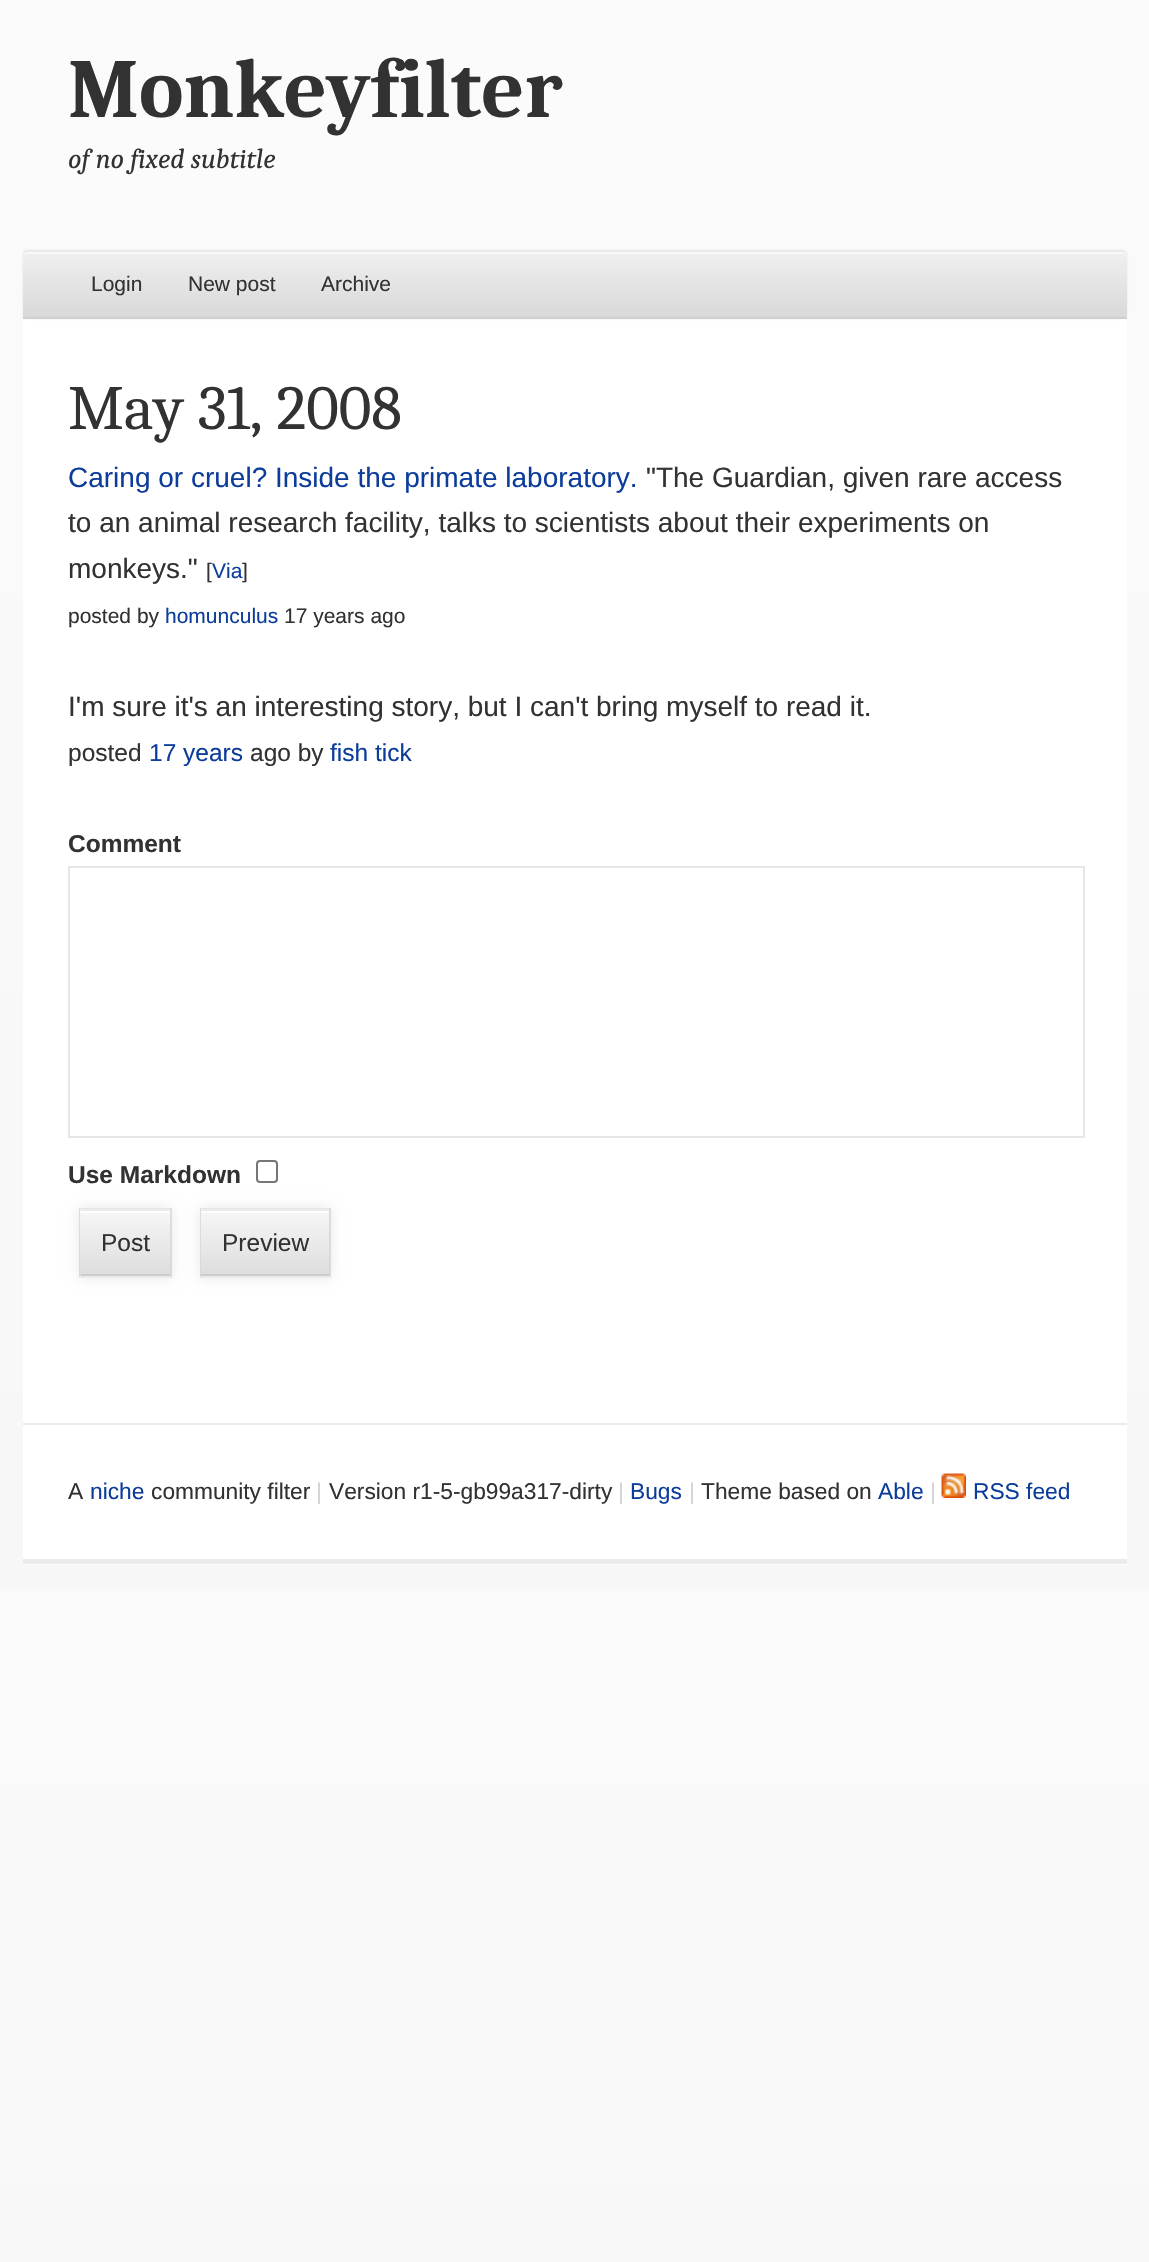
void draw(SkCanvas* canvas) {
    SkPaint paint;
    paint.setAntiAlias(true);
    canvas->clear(0xFFFFFFFF);
    {
        const SkColor colors[] = {0xFFFBFBFB, 0xFFF7F7F7};
        const float stops[] = {0, 1};
        const SkPoint ends[] = {{575, 0}, {575, 1589}};
        paint.setShader(SkGradientShader::MakeLinear(ends, colors, stops, 2, SkTileMode::kClamp));
        paint.setAlpha(255);
    }
    canvas->drawRect(SkRect::MakeXYWH(0, 0, 1149, 1589), paint);
    {
        const SkColor colors[] = {0xFFFAFAFA, 0xFFF6F6F6};
        const float stops[] = {0, 1};
        const SkPoint ends[] = {{575, 1589}, {575, 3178}};
        paint.setShader(SkGradientShader::MakeLinear(ends, colors, stops, 2, SkTileMode::kClamp));
        paint.setAlpha(255);
    }
    canvas->drawRect(SkRect::MakeXYWH(0, 1589, 1149, 673), paint);
    SkFont font1(fontMgr->matchFamilyStyle("Caladea", SkFontStyle::Bold()), 84);
    font1.setSubpixel(true);
    paint.setShader(nullptr);
    paint.setColor(0xFF323232);
    canvas->drawString("Monkeyfilter", 68, 117, font1, paint);
    SkFont font2(fontMgr->matchFamilyStyle("Caladea", SkFontStyle::Italic()), 28);
    font2.setSubpixel(true);
    canvas->drawString("of no fixed subtitle", 68, 168, font2, paint);
    paint.setColor(0xFFFFFFFF);
    canvas->drawPath(SkPathBuilder().moveTo(28, 250).lineTo(1122, 250).cubicTo(1125, 250, 1127, 252, 1127, 255).lineTo(1127, 1565).lineTo(23, 1565).lineTo(23, 255).cubicTo(23, 252, 25, 250, 28, 250).close().detach(), paint);
    paint.setColor(0xFFEBEBEB);
    canvas->drawRect(SkRect::MakeXYWH(23, 1559, 1104, 5), paint);
    paint.setColor(0x1A000000);
    paint.setMaskFilter(SkMaskFilter::MakeBlur(kNormal_SkBlurStyle, 1));
    canvas->drawRoundRect(SkRect::MakeXYWH(23, 250, 1104, 69), 5, 5, paint);
    paint.setMaskFilter(nullptr);
    paint.setColor(0xFFF0F0F0);
    canvas->drawPath(SkPathBuilder().moveTo(28, 250).lineTo(1122, 250).cubicTo(1125, 250, 1127, 252, 1127, 255).lineTo(1127, 319).lineTo(23, 319).lineTo(23, 255).cubicTo(23, 252, 25, 250, 28, 250).close().detach(), paint);
    {
        const SkColor colors[] = {0xCCF0F0F0, 0xCCD2D2D2};
        const float stops[] = {0, 1};
        const SkPoint ends[] = {{575, 250}, {575, 319}};
        paint.setShader(SkGradientShader::MakeLinear(ends, colors, stops, 2, SkTileMode::kClamp));
        paint.setAlpha(255);
    }
    canvas->drawPath(SkPathBuilder().moveTo(28, 250).lineTo(1122, 250).cubicTo(1125, 250, 1127, 252, 1127, 255).lineTo(1127, 319).lineTo(23, 319).lineTo(23, 255).cubicTo(23, 252, 25, 250, 28, 250).close().detach(), paint);
    paint.setShader(nullptr);
    paint.setColor(0xFFCFCFCF);
    canvas->drawRect(SkRect::MakeXYWH(23, 317, 1104, 2), paint);
    paint.setColor(0xCCFAFAFA);
    canvas->drawPath(SkPathBuilder().moveTo(28, 254).lineTo(1122, 254).cubicTo(1125, 254, 1127, 256, 1127, 259).lineTo(1127, 255).cubicTo(1127, 252, 1125, 250, 1122, 250).lineTo(28, 250).cubicTo(25, 250, 23, 252, 23, 255).lineTo(23, 259).cubicTo(23, 256, 25, 254, 28, 254).close().detach(), paint);
    paint.setColor(0xFFEAEAEA);
    canvas->drawPath(SkPathBuilder().moveTo(28, 252).lineTo(1122, 252).cubicTo(1125, 252, 1127, 254, 1127, 257).lineTo(1127, 255).cubicTo(1127, 252, 1125, 250, 1122, 250).lineTo(28, 250).cubicTo(25, 250, 23, 252, 23, 255).lineTo(23, 257).cubicTo(23, 254, 25, 252, 28, 252).close().detach(), paint);
    SkFont font3(fontMgr->matchFamilyStyle("Liberation Sans", SkFontStyle::Normal()), 21);
    font3.setSubpixel(true);
    paint.setColor(0xFF323232);
    canvas->drawString("Login", 91, 291, font3, paint);
    canvas->drawString("New post", 188, 291, font3, paint);
    canvas->drawString("Archive", 321, 291, font3, paint);
    SkFont font4(fontMgr->matchFamilyStyle("Caladea", SkFontStyle::Normal()), 63);
    font4.setSubpixel(true);
    canvas->drawString("May 31, 2008", 68, 429, font4, paint);
    SkFont font5(fontMgr->matchFamilyStyle("Liberation Sans", SkFontStyle::Normal()), 28);
    font5.setSubpixel(true);
    paint.setColor(0xFF0D3D9B);
    canvas->drawString("Caring or cruel? Inside the primate laboratory.", 68, 487, font5, paint);
    paint.setColor(0xFF323232);
    canvas->drawString("\"The Guardian, given rare access", 646, 487, font5, paint);
    canvas->drawString("to an animal research facility, talks to scientists about their experiments on", 68, 532, font5, paint);
    canvas->drawString("monkeys.\"", 68, 578, font5, paint);
    canvas->drawString("[", 206, 578, font3, paint);
    paint.setColor(0xFF0D3D9B);
    canvas->drawString("Via", 212, 578, font3, paint);
    paint.setColor(0xFF323232);
    canvas->drawString("]", 242, 578, font3, paint);
    canvas->drawString("posted by", 68, 623, font3, paint);
    paint.setColor(0xFF0D3D9B);
    canvas->drawString("homunculus", 165, 623, font3, paint);
    paint.setColor(0xFF323232);
    canvas->drawString("17 years ago", 284, 623, font3, paint);
    canvas->drawString("I'm sure it's an interesting story, but I can't bring myself to read it.", 68, 716, font5, paint);
    SkFont font6(fontMgr->matchFamilyStyle("Liberation Sans", SkFontStyle::Normal()), 24.5f);
    font6.setSubpixel(true);
    canvas->drawString("posted", 68, 761, font6, paint);
    paint.setColor(0xFF0D3D9B);
    canvas->drawString("17 years", 149, 761, font6, paint);
    paint.setColor(0xFF323232);
    canvas->drawString("ago by", 250, 761, font6, paint);
    paint.setColor(0xFF0D3D9B);
    canvas->drawString("fish tick", 330, 761, font6, paint);
    SkFont font7(fontMgr->matchFamilyStyle("Liberation Sans", SkFontStyle::Bold()), 24.5f);
    font7.setSubpixel(true);
    paint.setColor(0xFF323232);
    canvas->drawString("Comment", 68, 852, font7, paint);
    paint.setStyle(SkPaint::kStroke_Style);
    paint.setStrokeWidth(2);
    paint.setColor(0xFFE6E6E6);
    canvas->drawRect(SkRect::MakeXYWH(69, 867, 1015, 270), paint);
    paint.setStyle(SkPaint::kFill_Style);
    paint.setColor(0xFF323232);
    canvas->drawString("Use Markdown", 68, 1183, font7, paint);
    paint.setStyle(SkPaint::kStroke_Style);
    paint.setColor(0xFF767676);
    canvas->drawRoundRect(SkRect::MakeXYWH(257, 1161, 20, 21), 3, 3, paint);
    paint.setStyle(SkPaint::kFill_Style);
    paint.setColor(0x17000000);
    paint.setMaskFilter(SkMaskFilter::MakeBlur(kNormal_SkBlurStyle, 6));
    canvas->drawRect(SkRect::MakeXYWH(79, 1208, 93, 70), paint);
    paint.setMaskFilter(nullptr);
    paint.setColor(0xFFF7F7F7);
    canvas->drawRect(SkRect::MakeXYWH(79, 1276, 93, 2), paint);
    {
        const SkColor colors[] = {0xFFF7F7F7, 0xFFDDDDDD};
        const float stops[] = {0, 1};
        const SkPoint ends[] = {{125, 1143}, {125, 1209}};
        paint.setShader(SkGradientShader::MakeLinear(ends, colors, stops, 2, SkTileMode::kClamp));
        paint.setAlpha(255);
    }
    canvas->drawRect(SkRect::MakeXYWH(79, 1208, 93, 1), paint);
    {
        const SkColor colors[] = {0xFFF7F7F7, 0xFFDDDDDD};
        const float stops[] = {0, 1};
        const SkPoint ends[] = {{125, 1209}, {125, 1276}};
        paint.setShader(SkGradientShader::MakeLinear(ends, colors, stops, 2, SkTileMode::kClamp));
        paint.setAlpha(255);
    }
    canvas->drawRect(SkRect::MakeXYWH(79, 1209, 93, 67), paint);
    paint.setShader(nullptr);
    paint.setColor(0xFFCCCCCC);
    canvas->drawRect(SkRect::MakeXYWH(81, 1274, 89, 2), paint);
    paint.setColor(0xFFFDFDFD);
    canvas->drawRect(SkRect::MakeXYWH(81, 1211, 89, 2), paint);
    paint.setColor(0xFFEBEBEB);
    canvas->drawRect(SkRect::MakeXYWH(81, 1209, 89, 2), paint);
    paint.setColor(0xFFE5E5E5);
    canvas->drawPath(SkPathBuilder().moveTo(79, 1208).lineTo(172, 1208).lineTo(170, 1209).lineTo(80, 1209).close().detach(), paint);
    paint.setColor(0xCCD7D7D7);
    canvas->drawPath(SkPathBuilder().moveTo(172, 1208).lineTo(172, 1278).lineTo(170, 1276).lineTo(170, 1209).close().detach(), paint);
    paint.setColor(0xCCE7E7E7);
    canvas->drawPath(SkPathBuilder().moveTo(172, 1278).lineTo(79, 1278).lineTo(80, 1276).lineTo(170, 1276).close().detach(), paint);
    paint.setColor(0xCCD7D7D7);
    canvas->drawPath(SkPathBuilder().moveTo(79, 1278).lineTo(79, 1208).lineTo(80, 1209).lineTo(80, 1276).close().detach(), paint);
    paint.setColor(0xFF323232);
    canvas->drawString("Post", 101, 1251, font6, paint);
    paint.setColor(0x17000000);
    paint.setMaskFilter(SkMaskFilter::MakeBlur(kNormal_SkBlurStyle, 6));
    canvas->drawRect(SkRect::MakeXYWH(200, 1208, 131, 70), paint);
    paint.setMaskFilter(nullptr);
    paint.setColor(0xFFF7F7F7);
    canvas->drawRect(SkRect::MakeXYWH(200, 1276, 131, 2), paint);
    {
        const SkColor colors[] = {0xFFF7F7F7, 0xFFDDDDDD};
        const float stops[] = {0, 1};
        const SkPoint ends[] = {{265, 1143}, {265, 1209}};
        paint.setShader(SkGradientShader::MakeLinear(ends, colors, stops, 2, SkTileMode::kClamp));
        paint.setAlpha(255);
    }
    canvas->drawRect(SkRect::MakeXYWH(200, 1208, 131, 1), paint);
    {
        const SkColor colors[] = {0xFFF7F7F7, 0xFFDDDDDD};
        const float stops[] = {0, 1};
        const SkPoint ends[] = {{265, 1209}, {265, 1276}};
        paint.setShader(SkGradientShader::MakeLinear(ends, colors, stops, 2, SkTileMode::kClamp));
        paint.setAlpha(255);
    }
    canvas->drawRect(SkRect::MakeXYWH(200, 1209, 131, 67), paint);
    paint.setShader(nullptr);
    paint.setColor(0xFFCCCCCC);
    canvas->drawRect(SkRect::MakeXYWH(201, 1274, 128, 2), paint);
    paint.setColor(0xFFFDFDFD);
    canvas->drawRect(SkRect::MakeXYWH(201, 1211, 128, 2), paint);
    paint.setColor(0xFFEBEBEB);
    canvas->drawRect(SkRect::MakeXYWH(201, 1209, 128, 2), paint);
    paint.setColor(0xFFE5E5E5);
    canvas->drawPath(SkPathBuilder().moveTo(200, 1208).lineTo(331, 1208).lineTo(329, 1209).lineTo(201, 1209).close().detach(), paint);
    paint.setColor(0xCCD7D7D7);
    canvas->drawPath(SkPathBuilder().moveTo(331, 1208).lineTo(331, 1278).lineTo(329, 1276).lineTo(329, 1209).close().detach(), paint);
    paint.setColor(0xCCE7E7E7);
    canvas->drawPath(SkPathBuilder().moveTo(331, 1278).lineTo(200, 1278).lineTo(201, 1276).lineTo(329, 1276).close().detach(), paint);
    paint.setColor(0xCCD7D7D7);
    canvas->drawPath(SkPathBuilder().moveTo(200, 1278).lineTo(200, 1208).lineTo(201, 1209).lineTo(201, 1276).close().detach(), paint);
    paint.setColor(0xFF323232);
    canvas->drawString("Preview", 222, 1251, font6, paint);
    paint.setColor(0xFFEBEBEB);
    canvas->drawRect(SkRect::MakeXYWH(23, 1423, 1104, 2), paint);
    SkFont font8(fontMgr->matchFamilyStyle("Liberation Sans", SkFontStyle::Normal()), 22.75f);
    font8.setSubpixel(true);
    paint.setColor(0xFF323232);
    canvas->drawString("A", 68, 1499, font8, paint);
    paint.setColor(0xFF0D3D9B);
    canvas->drawString("niche", 90, 1499, font8, paint);
    paint.setColor(0xFF323232);
    canvas->drawString("community filter", 151, 1499, font8, paint);
    paint.setColor(0xFFD3D3D3);
    canvas->drawString("|", 316, 1499, font8, paint);
    paint.setColor(0xFF323232);
    canvas->drawString("Version r1-5-gb99a317-dirty", 329, 1499, font8, paint);
    paint.setColor(0xFFD3D3D3);
    canvas->drawString("|", 618, 1499, font8, paint);
    paint.setColor(0xFF0D3D9B);
    canvas->drawString("Bugs", 630, 1499, font8, paint);
    paint.setColor(0xFFD3D3D3);
    canvas->drawString("|", 689, 1499, font8, paint);
    paint.setColor(0xFF323232);
    canvas->drawString("Theme based on", 701, 1499, font8, paint);
    paint.setColor(0xFF0D3D9B);
    canvas->drawString("Able", 878, 1499, font8, paint);
    paint.setColor(0xFFD3D3D3);
    canvas->drawString("|", 930, 1499, font8, paint);
    canvas->drawImageRect(SkImages::DeferredFromEncodedData(SkData::MakeFromFileName("img1.png")), SkRect::MakeXYWH(941, 1473, 25, 25), SkSamplingOptions());
    paint.setColor(0xFF0D3D9B);
    canvas->drawString("RSS feed", 973, 1499, font8, paint);
}
